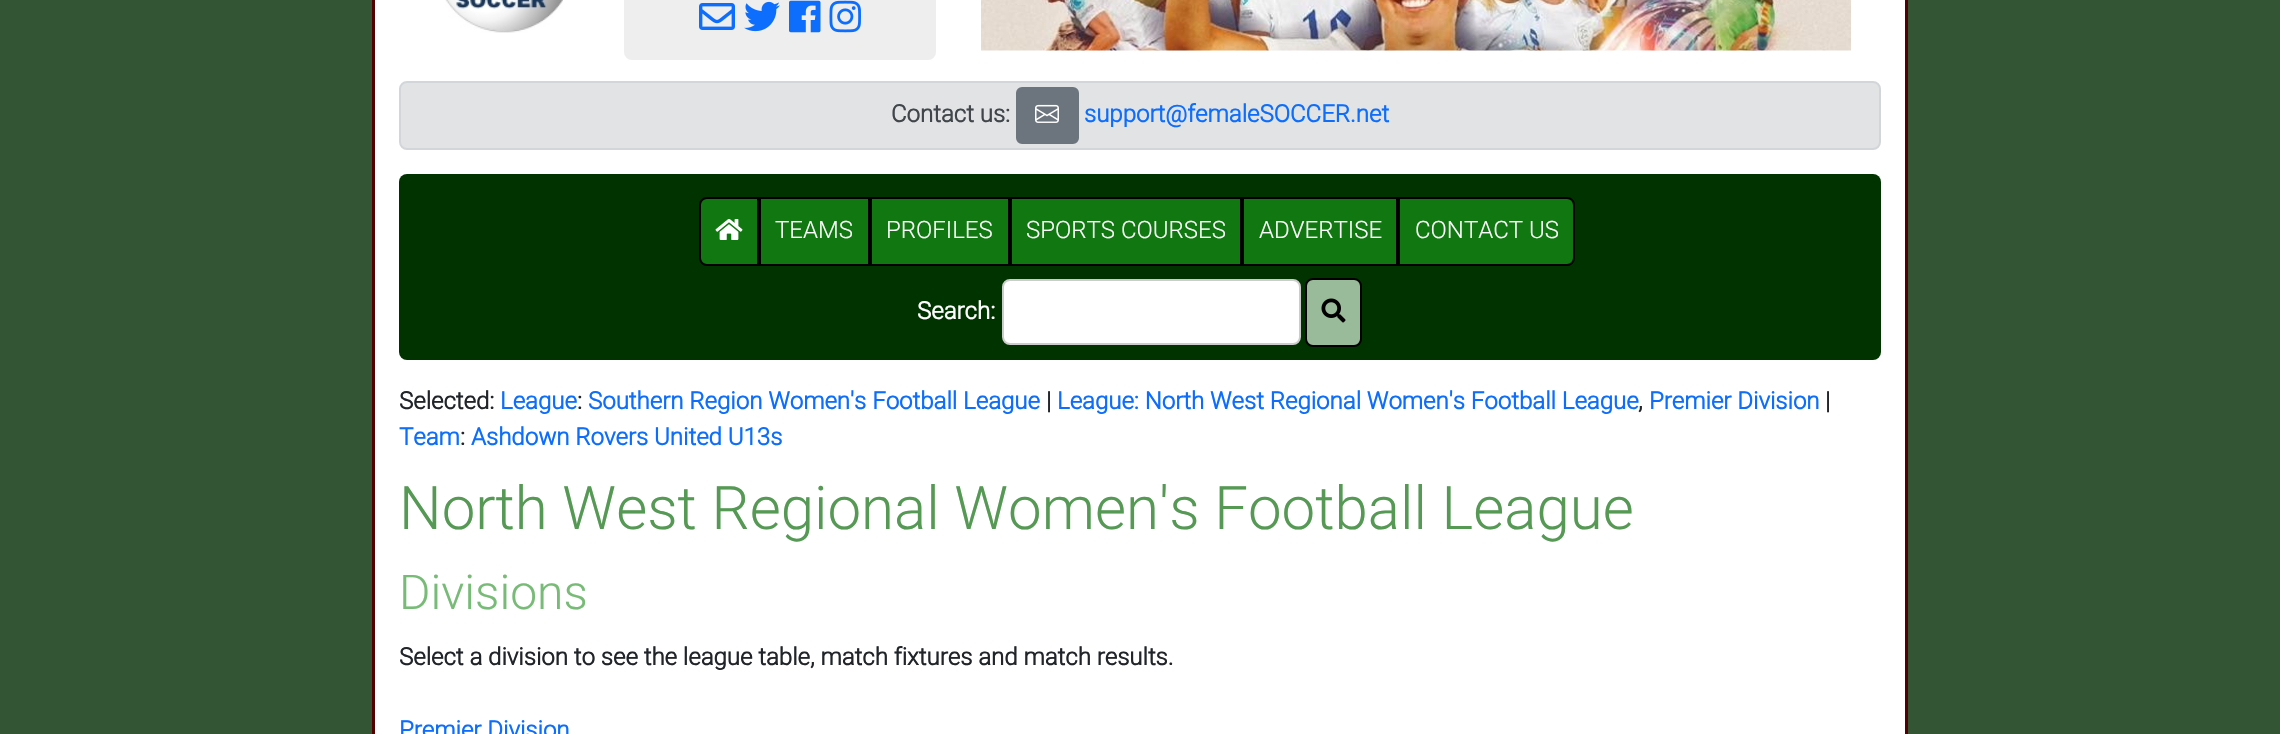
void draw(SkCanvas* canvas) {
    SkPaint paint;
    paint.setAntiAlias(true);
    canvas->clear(0xFF335533);
    paint.setColor(0xFFFFFFFF);
    canvas->drawRect(SkRect::MakeXYWH(373.5f, -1.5f, 1533, 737), paint);
    paint.setStyle(SkPaint::kStroke_Style);
    paint.setStrokeWidth(3);
    paint.setColor(0xFF550000);
    canvas->drawRect(SkRect::MakeXYWH(373.5f, -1.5f, 1533, 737), paint);
    canvas->drawImageRect(SkImages::DeferredFromEncodedData(SkData::MakeFromFileName("img1.png")), SkRect::MakeXYWH(445, 0, 118, 33), SkSamplingOptions());
    paint.setStyle(SkPaint::kFill_Style);
    paint.setColor(0xFFEEEEEE);
    canvas->drawRoundRect(SkRect::MakeXYWH(624, -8, 312, 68), 8, 8, paint);
    canvas->drawImageRect(SkImages::DeferredFromEncodedData(SkData::MakeFromFileName("img2.png")), SkRect::MakeXYWH(699, 3, 36, 27), SkSamplingOptions());
    canvas->drawImageRect(SkImages::DeferredFromEncodedData(SkData::MakeFromFileName("img3.png")), SkRect::MakeXYWH(744, 1, 36, 31), SkSamplingOptions());
    canvas->drawImageRect(SkImages::DeferredFromEncodedData(SkData::MakeFromFileName("img4.png")), SkRect::MakeXYWH(789, 0, 32, 33), SkSamplingOptions());
    canvas->drawImageRect(SkImages::DeferredFromEncodedData(SkData::MakeFromFileName("img5.png")), SkRect::MakeXYWH(829, 0, 32, 33), SkSamplingOptions());
    canvas->drawImageRect(SkImages::DeferredFromEncodedData(SkData::MakeFromFileName("img6.png")), SkRect::MakeXYWH(981, 0, 870, 51), SkSamplingOptions());
    paint.setColor(0xFFE2E3E5);
    canvas->drawRoundRect(SkRect::MakeXYWH(400, 82, 1480, 67), 7, 7, paint);
    paint.setStyle(SkPaint::kStroke_Style);
    paint.setStrokeWidth(2);
    paint.setColor(0xFFD3D6D8);
    canvas->drawRoundRect(SkRect::MakeXYWH(400, 82, 1480, 67), 7, 7, paint);
    SkFont font1(fontMgr->matchFamilyStyle("Roboto", SkFontStyle::Bold()), 24);
    font1.setSubpixel(true);
    paint.setStyle(SkPaint::kFill_Style);
    paint.setColor(0xFF41464B);
    canvas->drawString("Contact us:", 891, 122, font1, paint);
    paint.setColor(0xFF6C757D);
    canvas->drawRoundRect(SkRect::MakeXYWH(1017, 88, 61, 55), 5, 5, paint);
    paint.setStyle(SkPaint::kStroke_Style);
    canvas->drawRoundRect(SkRect::MakeXYWH(1017, 88, 61, 55), 5, 5, paint);
    canvas->drawImageRect(SkImages::DeferredFromEncodedData(SkData::MakeFromFileName("img7.png")), SkRect::MakeXYWH(1035, 104, 24, 19), SkSamplingOptions());
    paint.setStyle(SkPaint::kFill_Style);
    paint.setColor(0xFF0D6EFD);
    canvas->drawString("support@femaleSOCCER.net", 1084, 122, font1, paint);
    paint.setColor(0xFF003300);
    canvas->drawRoundRect(SkRect::MakeXYWH(399, 174, 1482, 186), 8, 8, paint);
    paint.setColor(0xFF117711);
    canvas->drawPath(SkPathBuilder().moveTo(707, 198).lineTo(758, 198).lineTo(758, 265).lineTo(707, 265).cubicTo(703, 265, 700, 262, 700, 258).lineTo(700, 205).cubicTo(700, 201, 703, 198, 707, 198).close().detach(), paint);
    paint.setStyle(SkPaint::kStroke_Style);
    paint.setColor(0xFF000000);
    canvas->drawPath(SkPathBuilder().moveTo(707, 198).lineTo(758, 198).lineTo(758, 265).lineTo(707, 265).cubicTo(703, 265, 700, 262, 700, 258).lineTo(700, 205).cubicTo(700, 201, 703, 198, 707, 198).close().detach(), paint);
    canvas->drawImageRect(SkImages::DeferredFromEncodedData(SkData::MakeFromFileName("img8.png")), SkRect::MakeXYWH(715, 219, 28, 21), SkSamplingOptions());
    paint.setStyle(SkPaint::kFill_Style);
    paint.setColor(0xFF117711);
    canvas->drawRect(SkRect::MakeXYWH(760, 198, 109, 67), paint);
    paint.setStyle(SkPaint::kStroke_Style);
    paint.setColor(0xFF000000);
    canvas->drawRect(SkRect::MakeXYWH(760, 198, 109, 67), paint);
    SkFont font2(fontMgr->matchFamilyStyle("Roboto", SkFontStyle(300, SkFontStyle::kNormal_Width, SkFontStyle::kUpright_Slant)), 24);
    font2.setSubpixel(true);
    paint.setStyle(SkPaint::kFill_Style);
    paint.setColor(0xFFFFFFFF);
    canvas->drawString("TEAMS", 775, 238, font2, paint);
    paint.setColor(0xFF117711);
    canvas->drawRect(SkRect::MakeXYWH(871, 198, 138, 67), paint);
    paint.setStyle(SkPaint::kStroke_Style);
    paint.setColor(0xFF000000);
    canvas->drawRect(SkRect::MakeXYWH(871, 198, 138, 67), paint);
    paint.setStyle(SkPaint::kFill_Style);
    paint.setColor(0xFFFFFFFF);
    canvas->drawString("PROFILES", 886, 238, font2, paint);
    paint.setColor(0xFF117711);
    canvas->drawRect(SkRect::MakeXYWH(1011, 198, 230, 67), paint);
    paint.setStyle(SkPaint::kStroke_Style);
    paint.setColor(0xFF000000);
    canvas->drawRect(SkRect::MakeXYWH(1011, 198, 230, 67), paint);
    paint.setStyle(SkPaint::kFill_Style);
    paint.setColor(0xFFFFFFFF);
    canvas->drawString("SPORTS COURSES", 1026, 238, font2, paint);
    paint.setColor(0xFF117711);
    canvas->drawRect(SkRect::MakeXYWH(1243, 198, 154, 67), paint);
    paint.setStyle(SkPaint::kStroke_Style);
    paint.setColor(0xFF000000);
    canvas->drawRect(SkRect::MakeXYWH(1243, 198, 154, 67), paint);
    paint.setStyle(SkPaint::kFill_Style);
    paint.setColor(0xFFFFFFFF);
    canvas->drawString("ADVERTISE", 1259, 238, font2, paint);
    paint.setColor(0xFF117711);
    canvas->drawPath(SkPathBuilder().moveTo(1399, 198).lineTo(1567, 198).cubicTo(1571, 198, 1574, 201, 1574, 205).lineTo(1574, 258).cubicTo(1574, 262, 1571, 265, 1567, 265).lineTo(1399, 265).close().detach(), paint);
    paint.setStyle(SkPaint::kStroke_Style);
    paint.setColor(0xFF000000);
    canvas->drawPath(SkPathBuilder().moveTo(1399, 198).lineTo(1567, 198).cubicTo(1571, 198, 1574, 201, 1574, 205).lineTo(1574, 258).cubicTo(1574, 262, 1571, 265, 1567, 265).lineTo(1399, 265).close().detach(), paint);
    paint.setStyle(SkPaint::kFill_Style);
    paint.setColor(0xFFFFFFFF);
    canvas->drawString("CONTACT US", 1415, 238, font2, paint);
    canvas->drawString("Search:", 917, 319, font1, paint);
    canvas->drawRoundRect(SkRect::MakeXYWH(1003, 280, 297, 64), 7, 7, paint);
    paint.setStyle(SkPaint::kStroke_Style);
    paint.setColor(0xFFCCCCCC);
    canvas->drawRoundRect(SkRect::MakeXYWH(1003, 280, 297, 64), 7, 7, paint);
    paint.setStyle(SkPaint::kFill_Style);
    paint.setColor(0xFF99BB99);
    canvas->drawRoundRect(SkRect::MakeXYWH(1306, 279, 55, 67), 7, 7, paint);
    paint.setStyle(SkPaint::kStroke_Style);
    paint.setColor(0xFF000000);
    canvas->drawRoundRect(SkRect::MakeXYWH(1306, 279, 55, 67), 7, 7, paint);
    canvas->drawImageRect(SkImages::DeferredFromEncodedData(SkData::MakeFromFileName("img9.png")), SkRect::MakeXYWH(1321, 298, 25, 25), SkSamplingOptions());
    paint.setStyle(SkPaint::kFill_Style);
    paint.setColor(0xFF212529);
    canvas->drawString("Selected:", 399, 409, font1, paint);
    paint.setColor(0xFF0D6EFD);
    canvas->drawString("League", 500, 409, font1, paint);
    paint.setColor(0xFF212529);
    canvas->drawString(":", 577, 409, font1, paint);
    paint.setColor(0xFF0D6EFD);
    canvas->drawString("Southern Region Women's Football League", 588, 409, font1, paint);
    paint.setColor(0xFF212529);
    canvas->drawString("|", 1046, 409, font1, paint);
    paint.setColor(0xFF0D6EFD);
    canvas->drawString("League: North West Regional Women's Football League", 1057, 409, font1, paint);
    paint.setColor(0xFF212529);
    canvas->drawString(",", 1638, 409, font1, paint);
    paint.setColor(0xFF0D6EFD);
    canvas->drawString("Premier Division", 1649, 409, font1, paint);
    paint.setColor(0xFF212529);
    canvas->drawString("|", 1825, 409, font1, paint);
    paint.setColor(0xFF0D6EFD);
    canvas->drawString("Team", 399, 445, font1, paint);
    paint.setColor(0xFF212529);
    canvas->drawString(":", 460, 445, font1, paint);
    paint.setColor(0xFF0D6EFD);
    canvas->drawString("Ashdown Rovers United U13s", 471, 445, font1, paint);
    SkFont font3(fontMgr->matchFamilyStyle("Roboto", SkFontStyle(300, SkFontStyle::kNormal_Width, SkFontStyle::kUpright_Slant)), 60);
    font3.setSubpixel(true);
    paint.setColor(0xFF559955);
    canvas->drawString("North West Regional Women's Football League", 399, 529, font3, paint);
    SkFont font4(fontMgr->matchFamilyStyle("Roboto", SkFontStyle(300, SkFontStyle::kNormal_Width, SkFontStyle::kUpright_Slant)), 48);
    font4.setSubpixel(true);
    paint.setColor(0xFF77BB77);
    canvas->drawString("Divisions", 399, 609, font4, paint);
    paint.setColor(0xFF212529);
    canvas->drawString("Select a division to see the league table, match fixtures and match results.", 399, 665, font1, paint);
    paint.setColor(0xFF0D6EFD);
    canvas->drawString("Premier Division", 399, 738, font1, paint);
}
